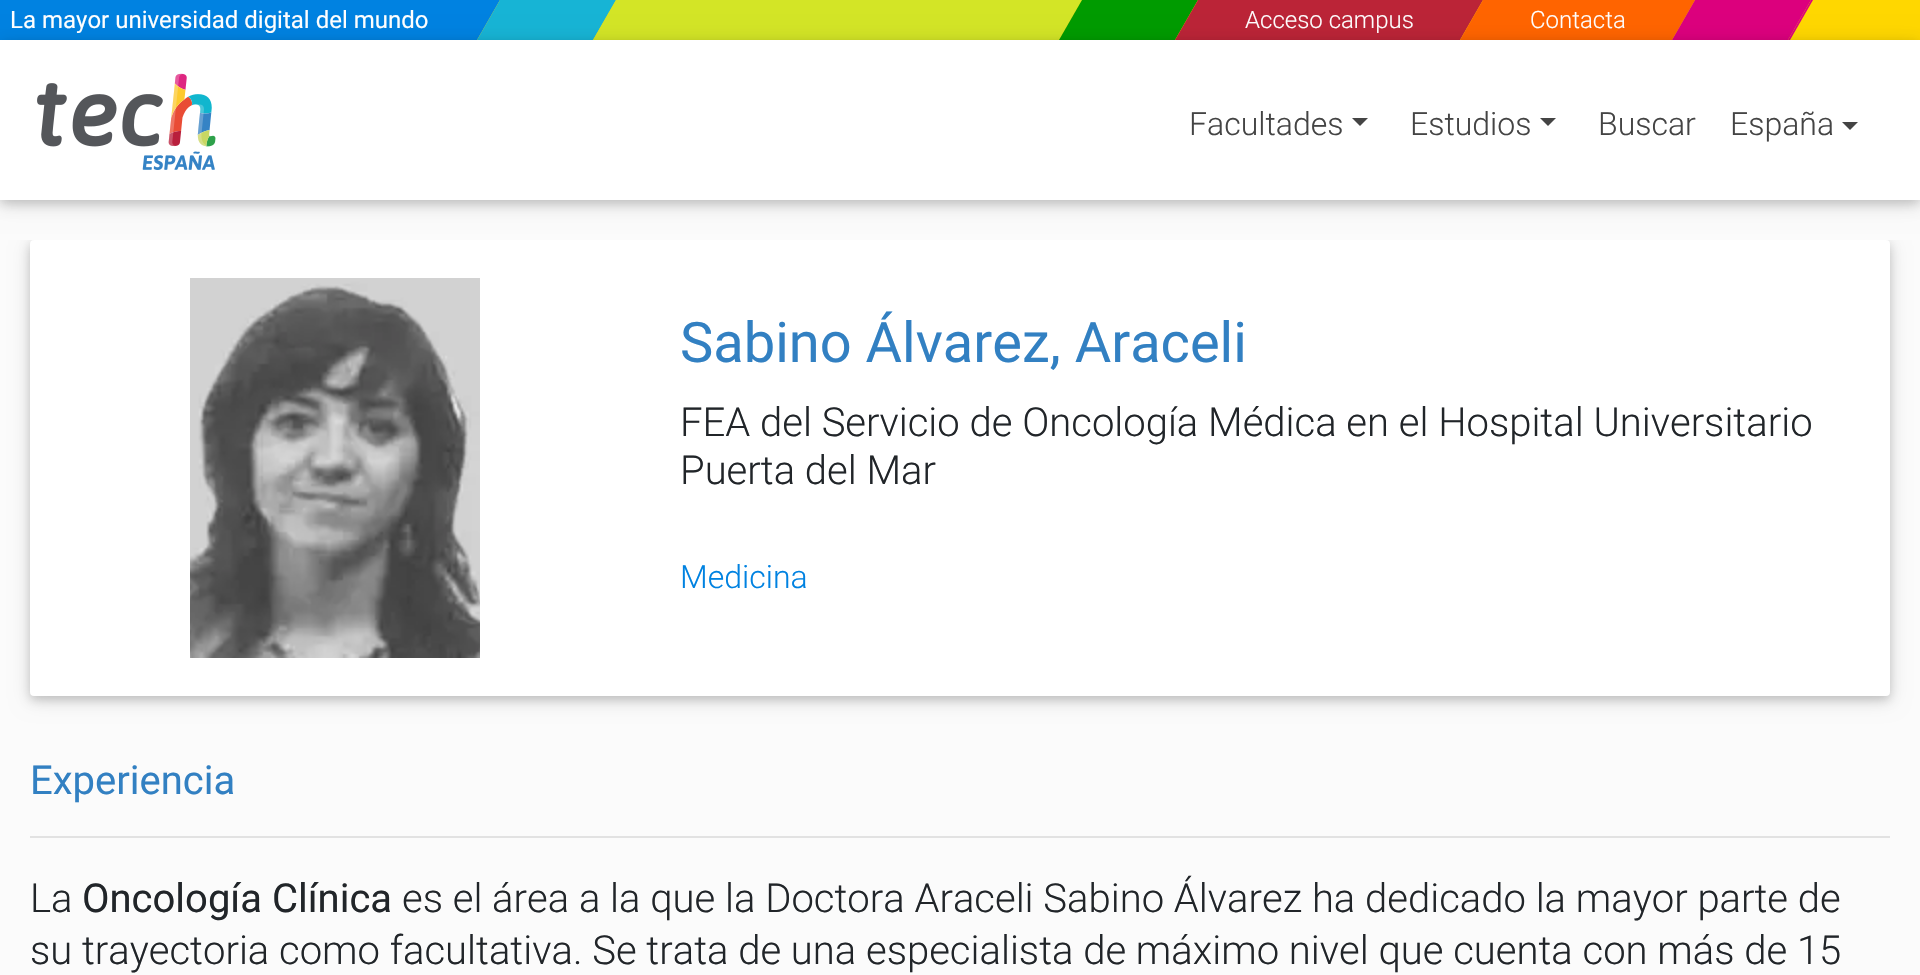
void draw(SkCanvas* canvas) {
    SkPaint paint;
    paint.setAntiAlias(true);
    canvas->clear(0xFFFBFBFB);
    paint.setColor(0xFFFFD700);
    canvas->drawRect(SkRect::MakeXYWH(477, 0, 1443, 40), paint);
    paint.setColor(0xFF0082E1);
    canvas->drawPath(SkPathBuilder().moveTo(-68, 0).lineTo(500, 0).lineTo(477, 40).lineTo(-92, 40).close().detach(), paint);
    SkFont font1(fontMgr->matchFamilyStyle("Roboto", SkFontStyle::Normal()), 24);
    font1.setSubpixel(true);
    paint.setColor(0xFFFFFFFF);
    canvas->drawString("La mayor universidad digital del mundo", 10, 28, font1, paint);
    paint.setColor(0xFF17B4D5);
    canvas->drawPath(SkPathBuilder().moveTo(500, 0).lineTo(616, 0).lineTo(593, 40).lineTo(477, 40).close().detach(), paint);
    paint.setColor(0xFFD3E526);
    canvas->drawPath(SkPathBuilder().moveTo(616, 0).lineTo(1082, 0).lineTo(1059, 40).lineTo(593, 40).close().detach(), paint);
    paint.setColor(0xFF009B00);
    canvas->drawPath(SkPathBuilder().moveTo(1082, 0).lineTo(1198, 0).lineTo(1175, 40).lineTo(1059, 40).close().detach(), paint);
    paint.setColor(0xFFBB2437);
    canvas->drawPath(SkPathBuilder().moveTo(1198, 0).lineTo(1483, 0).lineTo(1460, 40).lineTo(1175, 40).close().detach(), paint);
    SkFont font2(fontMgr->matchFamilyStyle("Roboto", SkFontStyle(300, SkFontStyle::kNormal_Width, SkFontStyle::kUpright_Slant)), 24);
    font2.setSubpixel(true);
    paint.setColor(0xFFFFFFFF);
    canvas->drawString("Acceso campus", 1245, 28, font2, paint);
    paint.setColor(0xFFFF6400);
    canvas->drawPath(SkPathBuilder().moveTo(1483, 0).lineTo(1695, 0).lineTo(1672, 40).lineTo(1460, 40).close().detach(), paint);
    paint.setColor(0xFFFFFFFF);
    canvas->drawString("Contacta", 1530, 28, font2, paint);
    paint.setColor(0xFFDC007D);
    canvas->drawPath(SkPathBuilder().moveTo(1788, 40).lineTo(1790, 40).lineTo(1813, 0).lineTo(1811, 0).close().detach(), paint);
    canvas->drawPath(SkPathBuilder().moveTo(1695, 0).lineTo(1811, 0).lineTo(1788, 40).lineTo(1672, 40).close().detach(), paint);
    paint.setColor(0x1F000000);
    paint.setMaskFilter(SkMaskFilter::MakeBlur(kNormal_SkBlurStyle, 10));
    canvas->drawRect(SkRect::MakeXYWH(0, 44, 1920, 160), paint);
    paint.setMaskFilter(nullptr);
    paint.setColor(0x29000000);
    paint.setMaskFilter(SkMaskFilter::MakeBlur(kNormal_SkBlurStyle, 5));
    canvas->drawRect(SkRect::MakeXYWH(0, 44, 1920, 160), paint);
    paint.setMaskFilter(nullptr);
    paint.setColor(0xFFFFFFFF);
    canvas->drawRect(SkRect::MakeXYWH(0, 40, 1920, 160), paint);
    canvas->drawImageRect(SkImages::DeferredFromEncodedData(SkData::MakeFromFileName("img1.png")), SkRect::MakeXYWH(37, 73, 179, 97), SkSamplingOptions());
    SkFont font3(fontMgr->matchFamilyStyle("Roboto", SkFontStyle(300, SkFontStyle::kNormal_Width, SkFontStyle::kUpright_Slant)), 32);
    font3.setSubpixel(true);
    paint.setColor(0xFF444444);
    canvas->drawString("Facultades", 1189, 135, font3, paint);
    canvas->drawPath(SkPathBuilder().moveTo(1352, 118).lineTo(1368, 118).lineTo(1360, 126).close().detach(), paint);
    canvas->drawString("Estudios", 1410, 135, font3, paint);
    canvas->drawPath(SkPathBuilder().moveTo(1540, 118).lineTo(1556, 118).lineTo(1548, 126).close().detach(), paint);
    canvas->drawString("Buscar", 1598, 135, font3, paint);
    canvas->drawString("España", 1730, 135, font3, paint);
    canvas->drawPath(SkPathBuilder().moveTo(1842, 122).lineTo(1858, 122).lineTo(1850, 130).close().detach(), paint);
    canvas->save();
    canvas->clipRect(SkRect::MakeXYWH(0, 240, 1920, 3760));
    paint.setColor(0x1F000000);
    paint.setMaskFilter(SkMaskFilter::MakeBlur(kNormal_SkBlurStyle, 10));
    canvas->drawRoundRect(SkRect::MakeXYWH(30, 244, 1860, 456), 4, 4, paint);
    paint.setMaskFilter(nullptr);
    paint.setColor(0x29000000);
    paint.setMaskFilter(SkMaskFilter::MakeBlur(kNormal_SkBlurStyle, 5));
    canvas->drawRoundRect(SkRect::MakeXYWH(30, 244, 1860, 456), 4, 4, paint);
    paint.setMaskFilter(nullptr);
    canvas->restore();
    paint.setColor(0xFFFFFFFF);
    canvas->drawRoundRect(SkRect::MakeXYWH(30, 240, 1860, 456), 4, 4, paint);
    canvas->drawImageRect(SkImages::DeferredFromEncodedData(SkData::MakeFromFileName("img2.png")), SkRect::MakeXYWH(190, 278, 290, 380), SkSamplingOptions());
    SkFont font4(fontMgr->matchFamilyStyle("Roboto", SkFontStyle::Normal()), 56);
    font4.setSubpixel(true);
    paint.setColor(0xFF3280C2);
    canvas->drawString("Sabino Álvarez, Araceli", 680, 362, font4, paint);
    SkFont font5(fontMgr->matchFamilyStyle("Roboto", SkFontStyle(300, SkFontStyle::kNormal_Width, SkFontStyle::kUpright_Slant)), 40);
    font5.setSubpixel(true);
    paint.setColor(0xFF212529);
    canvas->drawString("FEA del Servicio de Oncología Médica en el Hospital Universitario", 680, 436, font5, paint);
    canvas->drawString("Puerta del Mar", 680, 484, font5, paint);
    paint.setColor(0xFF0082E1);
    canvas->drawString("Medicina", 680, 588, font3, paint);
    SkFont font6(fontMgr->matchFamilyStyle("Roboto", SkFontStyle::Normal()), 40);
    font6.setSubpixel(true);
    paint.setColor(0xFF3280C2);
    canvas->drawString("Experiencia", 30, 794, font6, paint);
    paint.setColor(0xFFE2E2E2);
    canvas->drawRect(SkRect::MakeXYWH(30, 836, 1860, 2), paint);
    paint.setColor(0xFF212529);
    canvas->drawString("La", 30, 912, font5, paint);
    canvas->drawString("Oncología Clínica", 82, 912, font6, paint);
    canvas->drawString("es el área a la que la Doctora Araceli Sabino Álvarez ha dedicado la mayor parte de", 402, 912, font5, paint);
    canvas->drawString("su trayectoria como facultativa. Se trata de una especialista de máximo nivel que cuenta con más de 15", 30, 964, font5, paint);
}
